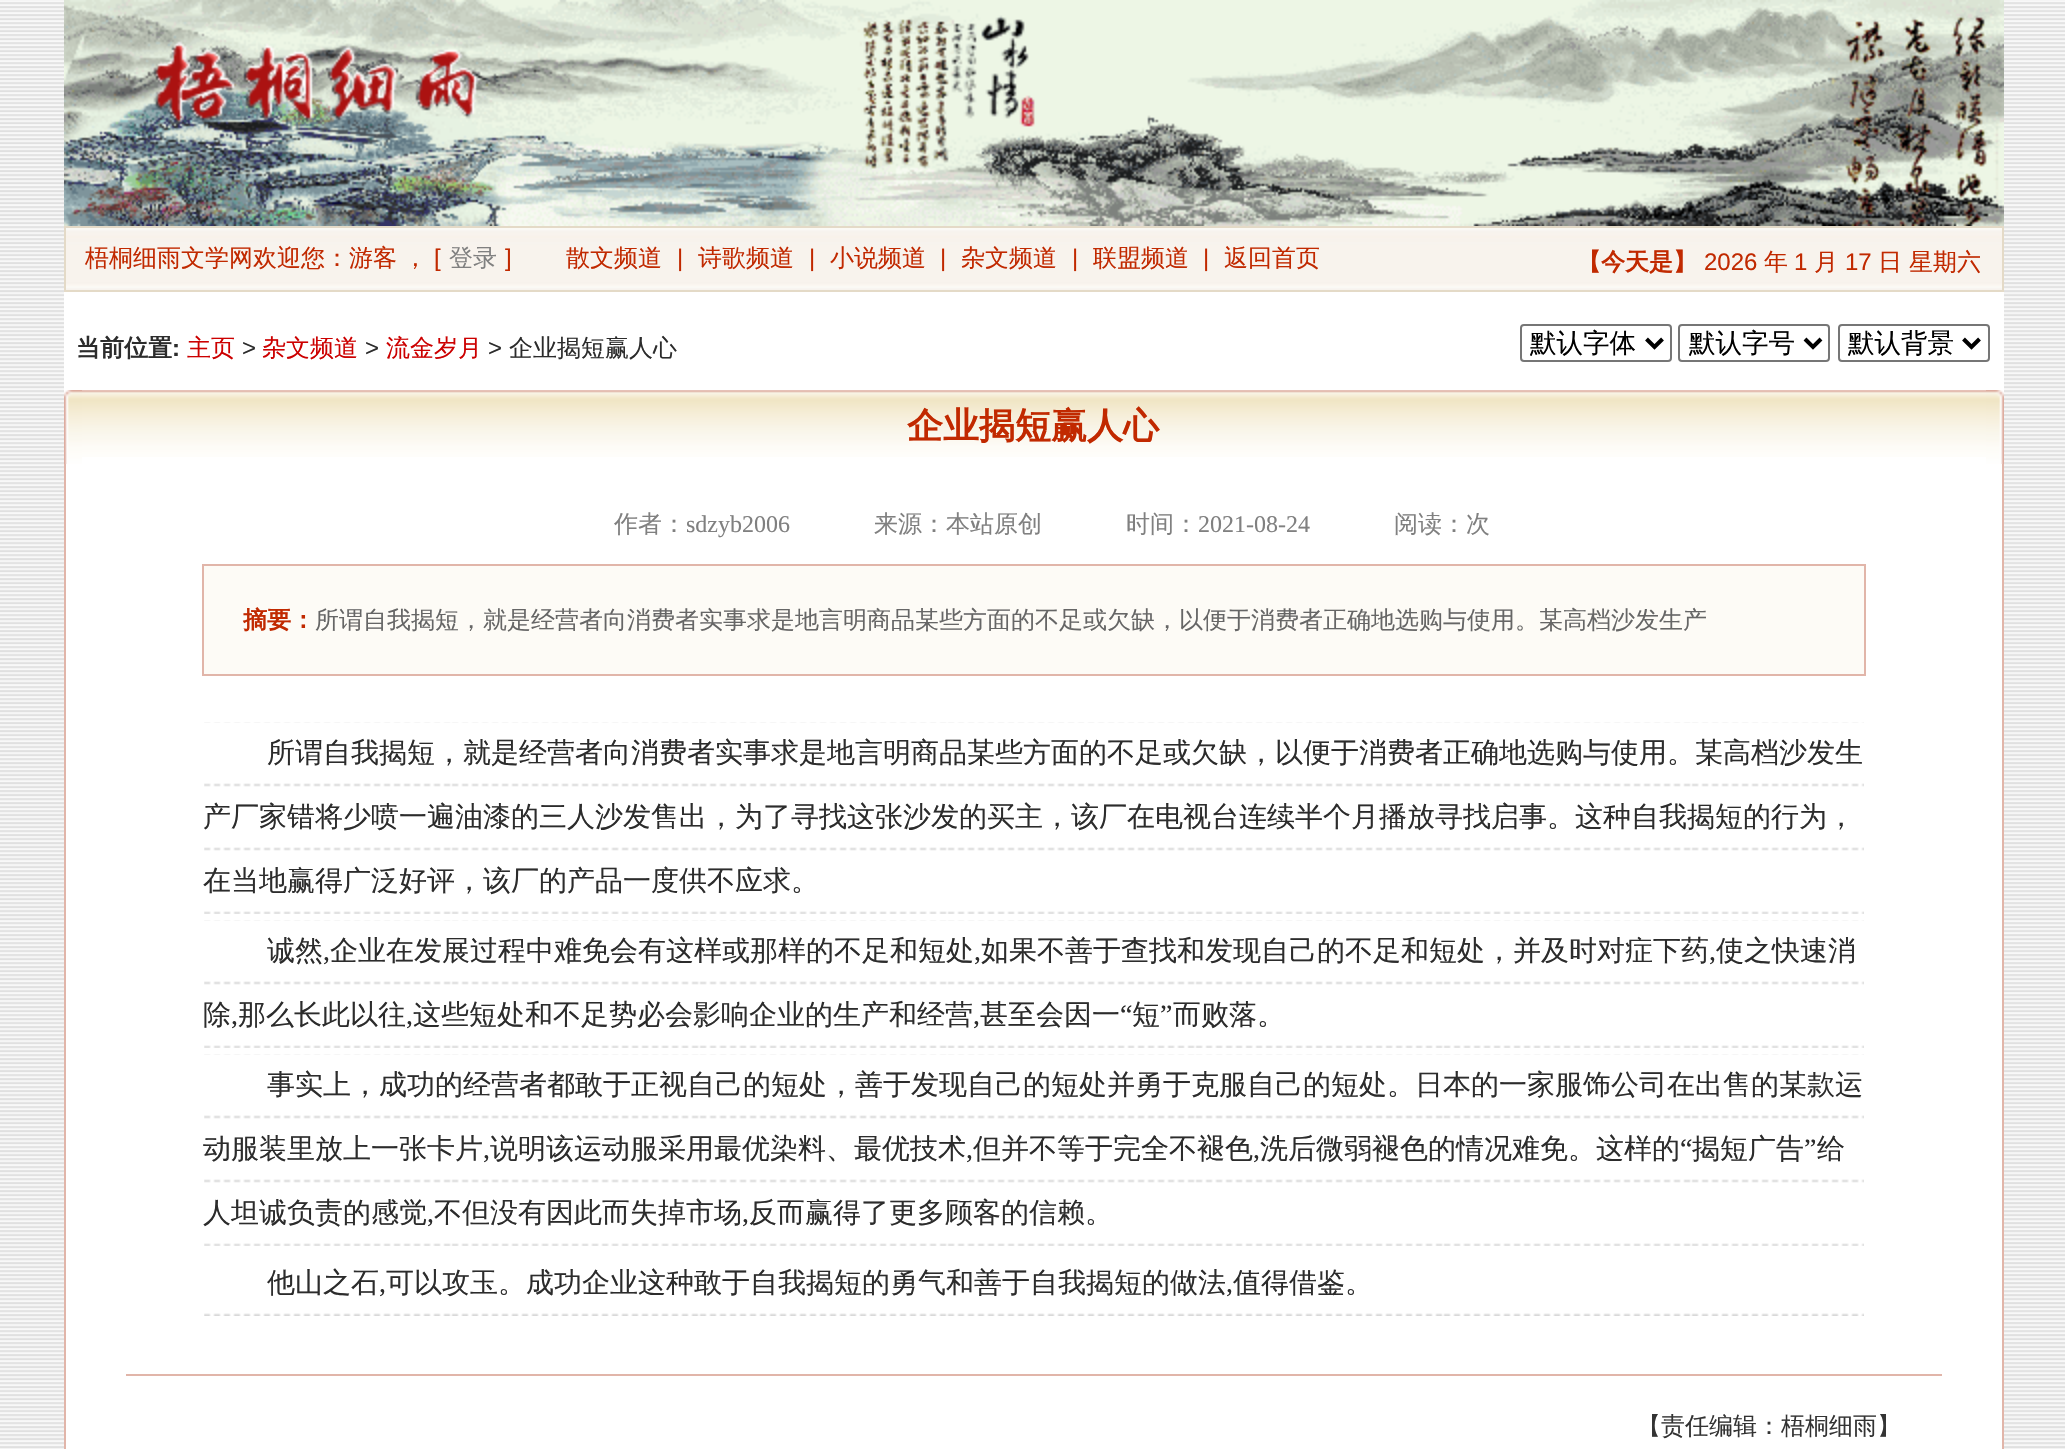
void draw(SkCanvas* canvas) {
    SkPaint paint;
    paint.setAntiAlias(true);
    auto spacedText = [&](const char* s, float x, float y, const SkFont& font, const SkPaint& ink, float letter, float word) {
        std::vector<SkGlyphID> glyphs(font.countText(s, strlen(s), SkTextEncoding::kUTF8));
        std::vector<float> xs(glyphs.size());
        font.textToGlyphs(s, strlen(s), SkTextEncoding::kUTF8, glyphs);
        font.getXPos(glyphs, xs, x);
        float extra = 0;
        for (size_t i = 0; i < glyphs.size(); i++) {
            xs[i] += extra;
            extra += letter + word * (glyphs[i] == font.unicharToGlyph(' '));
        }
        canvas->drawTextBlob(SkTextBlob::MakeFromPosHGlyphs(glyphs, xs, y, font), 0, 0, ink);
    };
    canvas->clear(0xFFFFFFFF);
    canvas->drawImageRect(SkImages::DeferredFromEncodedData(SkData::MakeFromFileName("img1.png")), SkRect::MakeXYWH(0, 0, 2065, 1449), SkSamplingOptions());
    paint.setColor(0xFFFFFFFF);
    canvas->drawRect(SkRect::MakeXYWH(64, 292, 1940, 1157), paint);
    canvas->drawImageRect(SkImages::DeferredFromEncodedData(SkData::MakeFromFileName("img2.png")), SkRect::MakeXYWH(64, 0, 1940, 226), SkSamplingOptions());
    canvas->drawImageRect(SkImages::DeferredFromEncodedData(SkData::MakeFromFileName("img3.png")), SkRect::MakeXYWH(66, 228, 1936, 62), SkSamplingOptions());
    paint.setStyle(SkPaint::kStroke_Style);
    paint.setStrokeWidth(2);
    paint.setColor(0xFFE4DAC7);
    canvas->drawRect(SkRect::MakeXYWH(65, 227, 1938, 64), paint);
    SkFont font1(fontMgr->matchFamilyStyle("WenQuanYi Zen Hei", SkFontStyle(500, SkFontStyle::kNormal_Width, SkFontStyle::kUpright_Slant)), 24);
    font1.setSubpixel(true);
    paint.setStyle(SkPaint::kFill_Style);
    paint.setColor(0xFFC12900);
    spacedText("梧桐细雨文学网欢迎您：游客 ，", 85, 266, font1, paint, 0, -1);
    SkFont font2(fontMgr->matchFamilyStyle("Liberation Sans", SkFontStyle::Normal()), 24);
    font2.setSubpixel(true);
    canvas->drawString("[", 434, 266, font2, paint);
    paint.setColor(0xFF808080);
    canvas->drawString("登录", 449, 266, font1, paint);
    paint.setColor(0xFFC12900);
    canvas->drawString("]", 505, 266, font2, paint);
    canvas->drawString("散文频道", 566, 266, font1, paint);
    canvas->drawString("|", 677, 266, font2, paint);
    canvas->drawString("诗歌频道", 698, 266, font1, paint);
    canvas->drawString("|", 809, 266, font2, paint);
    canvas->drawString("小说频道", 830, 266, font1, paint);
    canvas->drawString("|", 940, 266, font2, paint);
    canvas->drawString("杂文频道", 961, 266, font1, paint);
    canvas->drawString("|", 1072, 266, font2, paint);
    canvas->drawString("联盟频道", 1093, 266, font1, paint);
    canvas->drawString("|", 1203, 266, font2, paint);
    canvas->drawString("返回首页", 1224, 266, font1, paint);
    SkFont font3(fontMgr->matchFamilyStyle("WenQuanYi Zen Hei", SkFontStyle::Bold()), 24);
    font3.setSubpixel(true);
    canvas->drawString("【今天是】", 1577, 270, font3, paint);
    canvas->drawString("2026", 1704, 270, font2, paint);
    canvas->drawString("年", 1764, 270, font1, paint);
    canvas->drawString("1", 1794, 270, font2, paint);
    canvas->drawString("月", 1814, 270, font1, paint);
    canvas->drawString("17", 1845, 270, font2, paint);
    canvas->drawString("日", 1878, 270, font1, paint);
    canvas->drawString("星期六", 1909, 270, font1, paint);
    paint.setColor(0xFF2C2C2C);
    canvas->drawString("当前位置", 76, 356, font3, paint);
    SkFont font4(fontMgr->matchFamilyStyle("Liberation Sans", SkFontStyle::Bold()), 24);
    font4.setSubpixel(true);
    canvas->drawString(":", 172, 356, font4, paint);
    paint.setColor(0xFFCC0000);
    canvas->drawString("主页", 187, 356, font1, paint);
    paint.setColor(0xFF2C2C2C);
    canvas->drawString(">", 242, 356, font2, paint);
    paint.setColor(0xFFCC0000);
    canvas->drawString("杂文频道", 262, 356, font1, paint);
    paint.setColor(0xFF2C2C2C);
    canvas->drawString(">", 365, 356, font2, paint);
    paint.setColor(0xFFCC0000);
    canvas->drawString("流金岁月", 386, 356, font1, paint);
    paint.setColor(0xFF2C2C2C);
    canvas->drawString(">", 488, 356, font2, paint);
    canvas->drawString("企业揭短赢人心", 509, 356, font1, paint);
    paint.setStyle(SkPaint::kStroke_Style);
    paint.setColor(0xFF767676);
    canvas->drawRoundRect(SkRect::MakeXYWH(1521, 325, 150, 36), 3, 3, paint);
    paint.setStrokeWidth(4);
    paint.setColor(0xFF000000);
    canvas->drawPath(SkPathBuilder().moveTo(1646.5f, 339).lineTo(1654.5f, 347).lineTo(1662.5f, 339).detach(), paint);
    SkFont font5(fontMgr->matchFamilyStyle("WenQuanYi Zen Hei", SkFontStyle(500, SkFontStyle::kNormal_Width, SkFontStyle::kUpright_Slant)), 26.5f);
    font5.setSubpixel(true);
    paint.setStyle(SkPaint::kFill_Style);
    canvas->drawString("默认字体", 1530, 352, font5, paint);
    paint.setStyle(SkPaint::kStroke_Style);
    paint.setStrokeWidth(2);
    paint.setColor(0xFF767676);
    canvas->drawRoundRect(SkRect::MakeXYWH(1679, 325, 150, 36), 3, 3, paint);
    paint.setStrokeWidth(4);
    paint.setColor(0xFF000000);
    canvas->drawPath(SkPathBuilder().moveTo(1805, 339).lineTo(1813, 347).lineTo(1821, 339).detach(), paint);
    paint.setStyle(SkPaint::kFill_Style);
    canvas->drawString("默认字号", 1689, 352, font5, paint);
    paint.setStyle(SkPaint::kStroke_Style);
    paint.setStrokeWidth(2);
    paint.setColor(0xFF767676);
    canvas->drawRoundRect(SkRect::MakeXYWH(1839, 325, 150, 36), 3, 3, paint);
    paint.setStrokeWidth(4);
    paint.setColor(0xFF000000);
    canvas->drawPath(SkPathBuilder().moveTo(1963.5f, 339).lineTo(1971.5f, 347).lineTo(1979.5f, 339).detach(), paint);
    paint.setStyle(SkPaint::kFill_Style);
    canvas->drawString("默认背景", 1848, 352, font5, paint);
    canvas->drawImageRect(SkImages::DeferredFromEncodedData(SkData::MakeFromFileName("img4.png")), SkRect::MakeXYWH(82, 390, 1904, 67), SkSamplingOptions());
    canvas->drawImageRect(SkImages::DeferredFromEncodedData(SkData::MakeFromFileName("img5.png")), SkRect::MakeXYWH(64, 390, 18, 74), SkSamplingOptions());
    SkFont font6(fontMgr->matchFamilyStyle("WenQuanYi Zen Hei", SkFontStyle::Bold()), 36);
    font6.setSubpixel(true);
    paint.setColor(0xFFC12900);
    canvas->drawString("企业揭短赢人心", 907, 438, font6, paint);
    canvas->drawImageRect(SkImages::DeferredFromEncodedData(SkData::MakeFromFileName("img6.png")), SkRect::MakeXYWH(1986, 390, 18, 74), SkSamplingOptions());
    paint.setColor(0xFFE1B5A9);
    canvas->drawRect(SkRect::MakeXYWH(2002, 464, 2, 985), paint);
    canvas->drawRect(SkRect::MakeXYWH(64, 464, 2, 985), paint);
    paint.setColor(0xFF808080);
    canvas->drawString("作者：", 614, 532, font1, paint);
    SkFont font7(fontMgr->matchFamilyStyle("Liberation Serif", SkFontStyle::Normal()), 24);
    font7.setSubpixel(true);
    canvas->drawString("sdzyb2006", 686, 532, font7, paint);
    canvas->drawString("来源：本站原创", 874, 532, font1, paint);
    canvas->drawString("时间：", 1126, 532, font1, paint);
    canvas->drawString("2021-08-24", 1198, 532, font7, paint);
    canvas->drawString("阅读：次", 1394, 532, font1, paint);
    paint.setColor(0xFFFDFBF6);
    canvas->drawRect(SkRect::MakeXYWH(203, 565, 1662, 110), paint);
    paint.setStyle(SkPaint::kStroke_Style);
    paint.setStrokeWidth(2);
    paint.setColor(0xFFE1B5A9);
    canvas->drawRect(SkRect::MakeXYWH(203, 565, 1662, 110), paint);
    paint.setStyle(SkPaint::kFill_Style);
    paint.setColor(0xFFC12900);
    canvas->drawString("摘要：", 243, 628, font3, paint);
    paint.setColor(0xFF666666);
    canvas->drawString("所谓自我揭短，就是经营者向消费者实事求是地言明商品某些方面的不足或欠缺，以便于消费者正确地选购与使用。某高档沙发生产", 315, 628, font1, paint);
    canvas->drawImageRect(SkImages::DeferredFromEncodedData(SkData::MakeFromFileName("img7.png")), SkRect::MakeXYWH(204, 722, 1660, 192), SkSamplingOptions());
    SkFont font8(fontMgr->matchFamilyStyle("WenQuanYi Zen Hei", SkFontStyle(500, SkFontStyle::kNormal_Width, SkFontStyle::kUpright_Slant)), 28);
    font8.setSubpixel(true);
    paint.setColor(0xFF2C2C2C);
    canvas->drawString("所谓自我揭短，就是经营者向消费者实事求是地言明商品某些方面的不足或欠缺，以便于消费者正确地选购与使用。某高档沙发生", 267, 762, font8, paint);
    canvas->drawString("产厂家错将少喷一遍油漆的三人沙发售出，为了寻找这张沙发的买主，该厂在电视台连续半个月播放寻找启事。这种自我揭短的行为，", 203, 826, font8, paint);
    canvas->drawString("在当地赢得广泛好评，该厂的产品一度供不应求。", 203, 890, font8, paint);
    canvas->drawImageRect(SkImages::DeferredFromEncodedData(SkData::MakeFromFileName("img8.png")), SkRect::MakeXYWH(204, 920, 1660, 128), SkSamplingOptions());
    canvas->drawString("诚然", 267, 960, font8, paint);
    SkFont font9(fontMgr->matchFamilyStyle("Liberation Serif", SkFontStyle::Normal()), 28);
    font9.setSubpixel(true);
    canvas->drawString(",", 323, 960, font9, paint);
    canvas->drawString("企业在发展过程中难免会有这样或那样的不足和短处", 330, 960, font8, paint);
    canvas->drawString(",", 974, 960, font9, paint);
    canvas->drawString("如果不善于查找和发现自己的不足和短处，并及时对症下药", 981, 960, font8, paint);
    canvas->drawString(",", 1709, 960, font9, paint);
    canvas->drawString("使之快速消", 1716, 960, font8, paint);
    canvas->drawString("除", 203, 1024, font8, paint);
    canvas->drawString("那么长此以往", 238, 1024, font8, paint);
    canvas->drawString("这些短处和不足势必会影响企业的生产和经营", 413, 1024, font8, paint);
    canvas->drawString("甚至会因一", 980, 1024, font8, paint);
    canvas->drawString("“", 1120, 1024, font9, paint);
    canvas->drawString("短", 1132, 1024, font8, paint);
    canvas->drawString("”", 1160, 1024, font9, paint);
    canvas->drawString("而败落。", 1173, 1024, font8, paint);
    canvas->drawString(",", 231, 1024, font9, paint);
    canvas->drawString(",", 406, 1024, font9, paint);
    canvas->drawString(",", 973, 1024, font9, paint);
    canvas->drawImageRect(SkImages::DeferredFromEncodedData(SkData::MakeFromFileName("img7.png")), SkRect::MakeXYWH(204, 1054, 1660, 192), SkSamplingOptions());
    canvas->drawString("事实上，成功的经营者都敢于正视自己的短处，善于发现自己的短处并勇于克服自己的短处。日本的一家服饰公司在出售的某款运", 267, 1094, font8, paint);
    canvas->drawString("动服装里放上一张卡片", 203, 1158, font8, paint);
    canvas->drawString("说明该运动服采用最优染料、最优技术", 490, 1158, font8, paint);
    canvas->drawString("但并不等于完全不褪色", 973, 1158, font8, paint);
    canvas->drawString("洗后微弱褪色的情况难免。这样的", 1260, 1158, font8, paint);
    canvas->drawString("“", 1680, 1158, font9, paint);
    canvas->drawString("揭短广告", 1692, 1158, font8, paint);
    canvas->drawString("”", 1804, 1158, font9, paint);
    canvas->drawString("给", 1817, 1158, font8, paint);
    canvas->drawString(",", 483, 1158, font9, paint);
    canvas->drawString(",", 966, 1158, font9, paint);
    canvas->drawString(",", 1253, 1158, font9, paint);
    canvas->drawString("人坦诚负责的感觉", 203, 1222, font8, paint);
    canvas->drawString(",", 427, 1222, font9, paint);
    canvas->drawString("不但没有因此而失掉市场", 434, 1222, font8, paint);
    canvas->drawString(",", 742, 1222, font9, paint);
    canvas->drawString("反而赢得了更多顾客的信赖。", 749, 1222, font8, paint);
    canvas->drawImageRect(SkImages::DeferredFromEncodedData(SkData::MakeFromFileName("img9.png")), SkRect::MakeXYWH(204, 1313, 1660, 3), SkSamplingOptions());
    canvas->drawString("他山之石", 267, 1292, font8, paint);
    canvas->drawString(",", 379, 1292, font9, paint);
    canvas->drawString("可以攻玉。成功企业这种敢于自我揭短的勇气和善于自我揭短的做法", 386, 1292, font8, paint);
    canvas->drawString(",", 1226, 1292, font9, paint);
    canvas->drawString("值得借鉴。", 1233, 1292, font8, paint);
    paint.setColor(0xFFE1B5A9);
    canvas->drawRect(SkRect::MakeXYWH(126, 1374, 1816, 2), paint);
    paint.setColor(0xFF333333);
    canvas->drawString("【责任编辑：梧桐细雨】", 1637, 1434, font1, paint);
}
